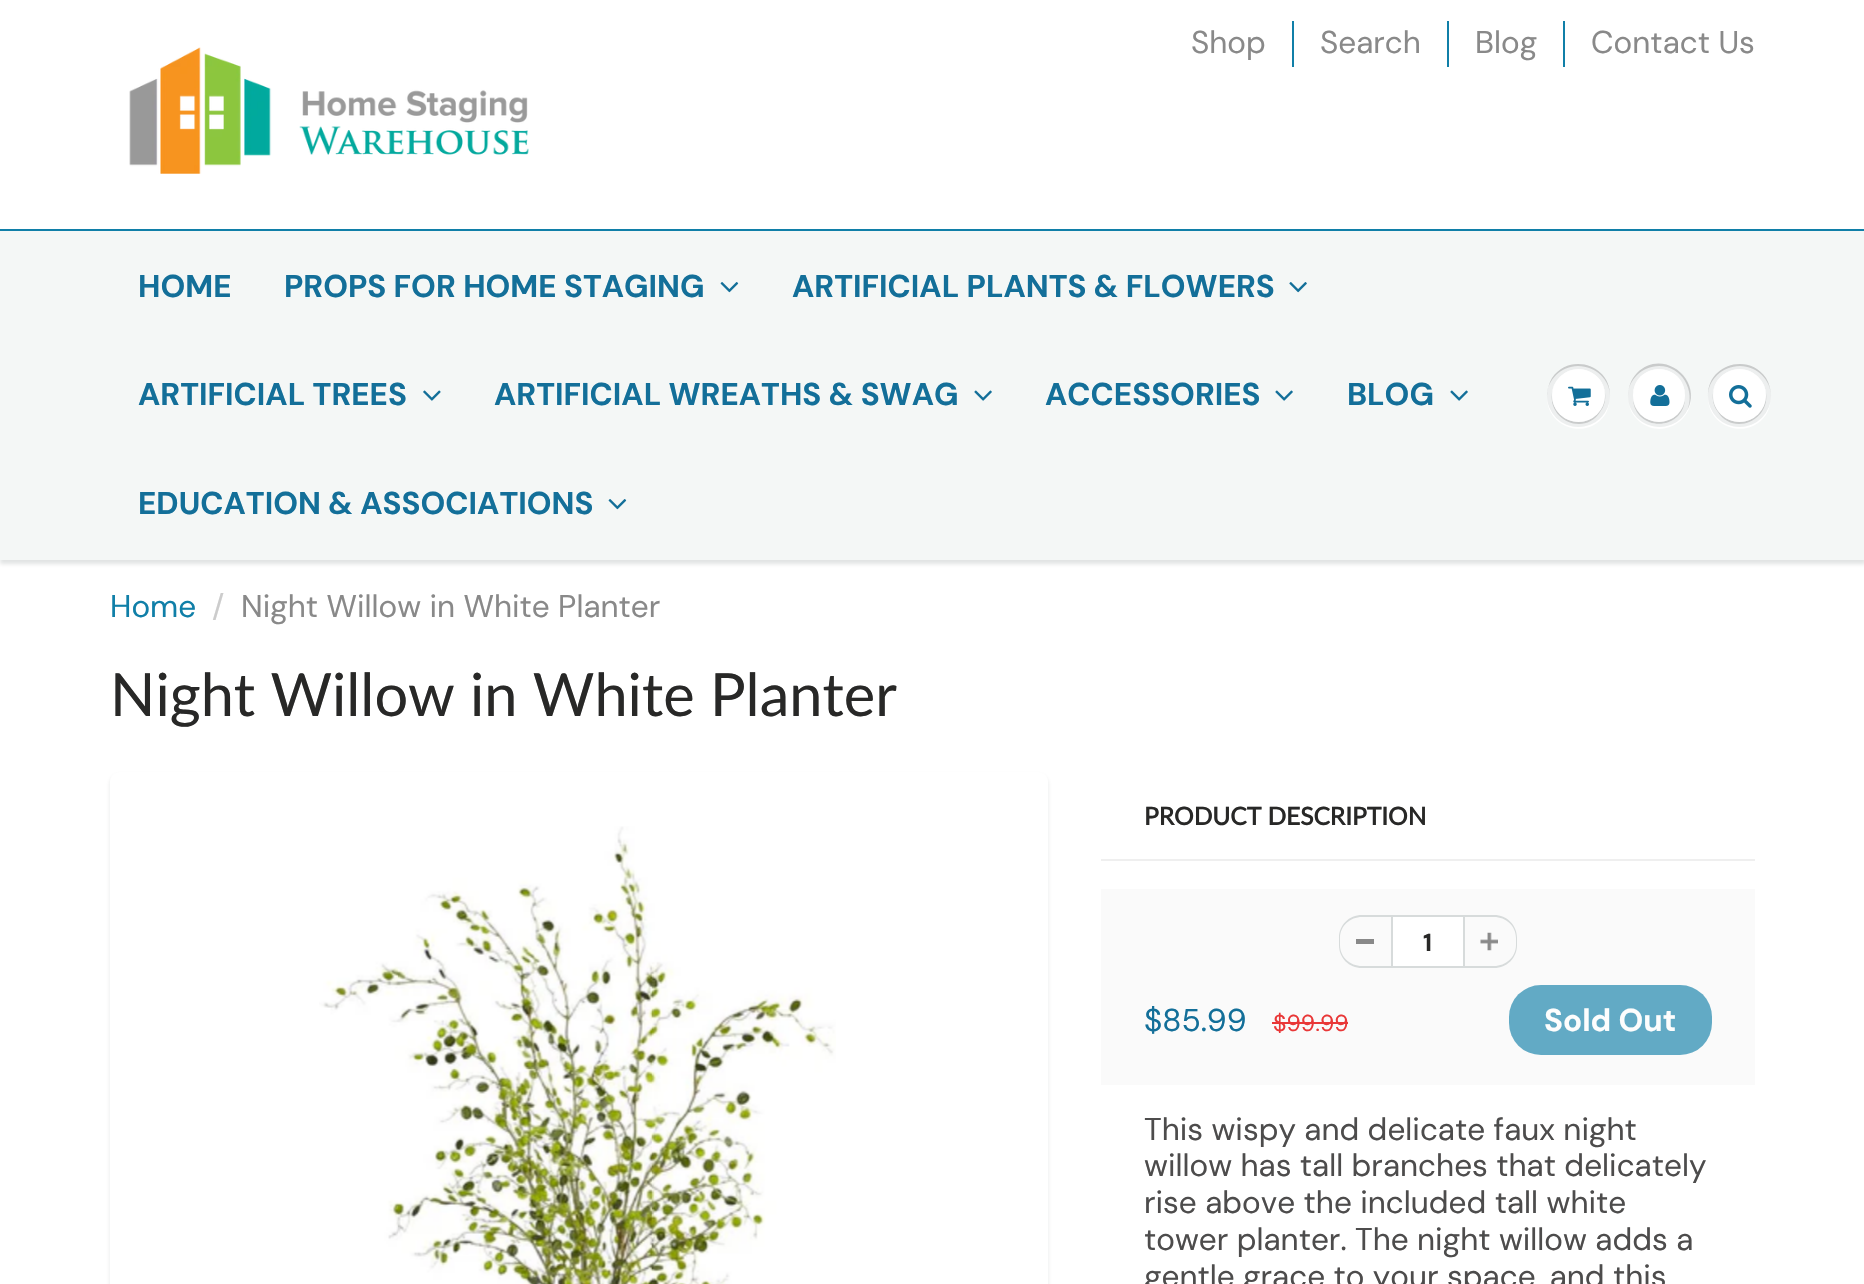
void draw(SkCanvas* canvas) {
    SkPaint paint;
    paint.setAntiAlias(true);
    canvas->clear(0xFFFFFFFF);
    canvas->drawImageRect(SkImages::DeferredFromEncodedData(SkData::MakeFromFileName("img1.png")), SkRect::MakeXYWH(129, 47, 400, 127), SkSamplingOptions());
    SkFont font1(fontMgr->matchFamilyStyle("DM Sans", SkFontStyle::Normal()), 31.5f);
    font1.setSubpixel(true);
    paint.setColor(0xFF898989);
    canvas->drawString("Shop", 1191, 53, font1, paint);
    paint.setColor(0xFF107FA8);
    canvas->drawRect(SkRect::MakeXYWH(1292, 21, 2, 46), paint);
    paint.setColor(0xFF898989);
    canvas->drawString("Search", 1320, 53, font1, paint);
    paint.setColor(0xFF107FA8);
    canvas->drawRect(SkRect::MakeXYWH(1447, 21, 2, 46), paint);
    paint.setColor(0xFF898989);
    canvas->drawString("Blog", 1475, 53, font1, paint);
    paint.setColor(0xFF107FA8);
    canvas->drawRect(SkRect::MakeXYWH(1563, 21, 2, 46), paint);
    paint.setColor(0xFF898989);
    canvas->drawString("Contact Us", 1591, 53, font1, paint);
    paint.setColor(0x1F0B191C);
    paint.setMaskFilter(SkMaskFilter::MakeBlur(kNormal_SkBlurStyle, 2));
    canvas->drawRect(SkRect::MakeXYWH(0, 233, 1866, 331), paint);
    paint.setMaskFilter(nullptr);
    paint.setColor(0xFFF4F7F6);
    canvas->drawRect(SkRect::MakeXYWH(0, 231, 1864, 329), paint);
    paint.setColor(0xFF107FA8);
    canvas->drawRect(SkRect::MakeXYWH(0, 229, 1864, 2), paint);
    SkFont font2(fontMgr->matchFamilyStyle("DM Sans", SkFontStyle::Bold()), 31.5f);
    font2.setSubpixel(true);
    paint.setColor(0xFF136F99);
    canvas->drawString("HOME", 138, 297, font2, paint);
    canvas->drawString("PROPS FOR HOME STAGING", 284, 297, font2, paint);
    canvas->drawImageRect(SkImages::DeferredFromEncodedData(SkData::MakeFromFileName("img2.png")), SkRect::MakeXYWH(720, 282, 19, 11), SkSamplingOptions());
    canvas->drawString("ARTIFICIAL PLANTS & FLOWERS", 792, 297, font2, paint);
    canvas->drawImageRect(SkImages::DeferredFromEncodedData(SkData::MakeFromFileName("img3.png")), SkRect::MakeXYWH(1289, 282, 18, 11), SkSamplingOptions());
    canvas->drawString("ARTIFICIAL TREES", 138, 405, font2, paint);
    canvas->drawImageRect(SkImages::DeferredFromEncodedData(SkData::MakeFromFileName("img4.png")), SkRect::MakeXYWH(423, 390, 18, 11), SkSamplingOptions());
    canvas->drawString("ARTIFICIAL WREATHS & SWAG", 494, 405, font2, paint);
    canvas->drawImageRect(SkImages::DeferredFromEncodedData(SkData::MakeFromFileName("img5.png")), SkRect::MakeXYWH(974, 390, 18, 11), SkSamplingOptions());
    canvas->drawString("ACCESSORIES", 1045, 405, font2, paint);
    canvas->drawImageRect(SkImages::DeferredFromEncodedData(SkData::MakeFromFileName("img5.png")), SkRect::MakeXYWH(1275, 390, 18, 11), SkSamplingOptions());
    canvas->drawString("BLOG", 1347, 405, font2, paint);
    canvas->drawImageRect(SkImages::DeferredFromEncodedData(SkData::MakeFromFileName("img5.png")), SkRect::MakeXYWH(1450, 390, 18, 11), SkSamplingOptions());
    canvas->drawString("EDUCATION & ASSOCIATIONS", 138, 514, font2, paint);
    canvas->drawImageRect(SkImages::DeferredFromEncodedData(SkData::MakeFromFileName("img2.png")), SkRect::MakeXYWH(608, 499, 19, 11), SkSamplingOptions());
    paint.setColor(0xFFFFFFFF);
    canvas->drawPath(SkPathBuilder().moveTo(1547, 396).cubicTo(1546, 428, 1587, 441, 1605, 415).cubicTo(1608, 410, 1610, 403, 1610, 396).cubicTo(1609, 413, 1596, 427, 1578, 427).cubicTo(1561, 427, 1548, 413, 1547, 396).close().detach(), paint);
    paint.setColor(0xFFEDEFEF);
    canvas->drawCircle(1578.5f, 395.5f, 31.5f, paint);
    paint.setColor(0xFFC9CBCB);
    canvas->drawPath(SkPathBuilder().moveTo(1578, 366).cubicTo(1596, 366, 1610, 380, 1610, 396).cubicTo(1611, 365, 1570, 352, 1552, 378).cubicTo(1549, 383, 1547, 390, 1547, 396).cubicTo(1547, 380, 1561, 366, 1578, 366).close().detach(), paint);
    canvas->drawPath(SkPathBuilder().moveTo(1552, 393).cubicTo(1548, 421, 1585, 436, 1600, 412).cubicTo(1604, 407, 1606, 400, 1605, 393).cubicTo(1605, 399, 1604, 405, 1600, 410).cubicTo(1585, 433, 1550, 420, 1552, 393).close().detach(), paint);
    paint.setColor(0xFFFFFFFF);
    canvas->drawCircle(1578.5f, 395.5f, 26.5f, paint);
    canvas->drawPath(SkPathBuilder().moveTo(1578, 371).cubicTo(1593, 371, 1605, 383, 1605, 396).cubicTo(1606, 370, 1571, 359, 1557, 381).cubicTo(1553, 385, 1552, 391, 1552, 396).cubicTo(1552, 383, 1564, 371, 1578, 371).close().detach(), paint);
    canvas->drawImageRect(SkImages::DeferredFromEncodedData(SkData::MakeFromFileName("img6.png")), SkRect::MakeXYWH(1568, 386, 23, 20), SkSamplingOptions());
    canvas->drawPath(SkPathBuilder().moveTo(1629, 404).cubicTo(1630, 411, 1634, 417, 1640, 422).cubicTo(1664, 441, 1698, 418, 1690, 389).cubicTo(1691, 395, 1691, 402, 1688, 408).cubicTo(1677, 435, 1637, 432, 1629, 404).close().detach(), paint);
    paint.setColor(0xFFEDEFEF);
    canvas->drawCircle(1659.5f, 395.5f, 31.5f, paint);
    paint.setColor(0xFFC9CBCB);
    canvas->drawPath(SkPathBuilder().moveTo(1659, 366).cubicTo(1682, 366, 1696, 391, 1687, 411).cubicTo(1704, 380, 1663, 347, 1637, 373).cubicTo(1631, 379, 1628, 388, 1628, 396).cubicTo(1628, 380, 1642, 366, 1659, 366).close().detach(), paint);
    canvas->drawPath(SkPathBuilder().moveTo(1633, 399).cubicTo(1635, 432, 1683, 432, 1685, 399).cubicTo(1681, 429, 1637, 429, 1633, 399).close().detach(), paint);
    paint.setColor(0xFFFFFFFF);
    canvas->drawRoundRect(SkRect::MakeXYWH(1633, 369, 52, 53), 26, 26, paint);
    canvas->drawPath(SkPathBuilder().moveTo(1659, 371).cubicTo(1673, 371, 1685, 383, 1685, 397).cubicTo(1686, 360, 1632, 360, 1633, 397).cubicTo(1633, 383, 1645, 371, 1659, 371).close().detach(), paint);
    canvas->drawImageRect(SkImages::DeferredFromEncodedData(SkData::MakeFromFileName("img7.png")), SkRect::MakeXYWH(1650, 385, 20, 21), SkSamplingOptions());
    canvas->drawPath(SkPathBuilder().moveTo(1708, 396).cubicTo(1707, 428, 1748, 441, 1766, 415).cubicTo(1769, 410, 1771, 403, 1771, 396).cubicTo(1770, 413, 1757, 427, 1740, 427).cubicTo(1722, 427, 1709, 413, 1708, 396).close().detach(), paint);
    paint.setColor(0xFFEDEFEF);
    canvas->drawCircle(1739.5f, 395.5f, 31.5f, paint);
    paint.setColor(0xFFC9CBCB);
    canvas->drawPath(SkPathBuilder().moveTo(1740, 366).cubicTo(1757, 366, 1771, 380, 1771, 396).cubicTo(1771, 390, 1769, 383, 1766, 378).cubicTo(1748, 352, 1707, 365, 1708, 396).cubicTo(1708, 380, 1722, 366, 1740, 366).close().detach(), paint);
    canvas->drawPath(SkPathBuilder().moveTo(1713, 393).cubicTo(1712, 400, 1714, 407, 1718, 412).cubicTo(1733, 436, 1770, 421, 1766, 393).cubicTo(1766, 399, 1765, 405, 1761, 410).cubicTo(1746, 433, 1711, 420, 1713, 393).close().detach(), paint);
    paint.setColor(0xFFFFFFFF);
    canvas->drawCircle(1739.5f, 395.5f, 26.5f, paint);
    canvas->drawPath(SkPathBuilder().moveTo(1740, 371).cubicTo(1754, 371, 1766, 383, 1766, 396).cubicTo(1766, 391, 1765, 385, 1761, 381).cubicTo(1747, 359, 1712, 370, 1713, 396).cubicTo(1713, 383, 1725, 371, 1740, 371).close().detach(), paint);
    canvas->drawImageRect(SkImages::DeferredFromEncodedData(SkData::MakeFromFileName("img8.png")), SkRect::MakeXYWH(1729, 385, 23, 23), SkSamplingOptions());
    paint.setColor(0xFF107FA8);
    canvas->drawString("Home", 110, 617, font1, paint);
    paint.setColor(0xFFCCCCCC);
    canvas->drawString("/", 212, 617, font1, paint);
    paint.setColor(0xFF898989);
    canvas->drawString("Night Willow in White Planter", 241, 617, font1, paint);
    SkFont font3(fontMgr->matchFamilyStyle("Lato", SkFontStyle::Normal()), 59.5f);
    font3.setSubpixel(true);
    paint.setColor(0xFF282827);
    canvas->drawString("Night Willow in White Planter", 110, 716, font3, paint);
    paint.setColor(0x1A0B191C);
    paint.setMaskFilter(SkMaskFilter::MakeBlur(kNormal_SkBlurStyle, 2));
    canvas->drawRoundRect(SkRect::MakeXYWH(110, 775, 938, 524), 9, 9, paint);
    paint.setMaskFilter(nullptr);
    paint.setColor(0xFFFFFFFF);
    canvas->drawRoundRect(SkRect::MakeXYWH(110, 772, 938, 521), 9, 9, paint);
    canvas->drawImageRect(SkImages::DeferredFromEncodedData(SkData::MakeFromFileName("img9.png")), SkRect::MakeXYWH(319, 826, 517, 458), SkSamplingOptions());
    paint.setColor(0xFFEFEFEF);
    canvas->drawRect(SkRect::MakeXYWH(1101, 859, 654, 2), paint);
    SkFont font4(fontMgr->matchFamilyStyle("Lato", SkFontStyle::Bold()), 24.5f);
    font4.setSubpixel(true);
    paint.setColor(0xFF282827);
    canvas->drawString("PRODUCT DESCRIPTION", 1144, 825, font4, paint);
    paint.setColor(0xFFFAFAFA);
    canvas->drawRect(SkRect::MakeXYWH(1101, 889, 654, 196), paint);
    paint.setColor(0xFF898989);
    canvas->drawRect(SkRect::MakeXYWH(1356, 939, 18, 5), paint);
    paint.setColor(0xFFD7DBDB);
    canvas->drawPath(SkPathBuilder(SkPathFillType::kEvenOdd).moveTo(1362, 915).lineTo(1391, 915).lineTo(1391, 968).lineTo(1362, 968).cubicTo(1349, 968, 1339, 958, 1339, 945).lineTo(1339, 938).cubicTo(1339, 925, 1349, 915, 1362, 915).close().moveTo(1362, 917).lineTo(1391, 917).lineTo(1391, 966).lineTo(1362, 966).cubicTo(1350, 966, 1340, 957, 1340, 945).lineTo(1340, 938).cubicTo(1340, 926, 1350, 917, 1362, 917).close().detach(), paint);
    paint.setColor(0xFFFFFFFF);
    canvas->drawRect(SkRect::MakeXYWH(1392, 916, 72, 51), paint);
    paint.setStyle(SkPaint::kStroke_Style);
    paint.setStrokeWidth(2);
    paint.setColor(0xFFD7DBDB);
    canvas->drawRect(SkRect::MakeXYWH(1392, 916, 72, 51), paint);
    SkFont font5(fontMgr->matchFamilyStyle("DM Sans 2", SkFontStyle::Bold()), 24.5f);
    font5.setSubpixel(true);
    paint.setStyle(SkPaint::kFill_Style);
    paint.setColor(0xFF282827);
    canvas->drawString("1", 1423, 951, font5, paint);
    canvas->drawImageRect(SkImages::DeferredFromEncodedData(SkData::MakeFromFileName("img10.png")), SkRect::MakeXYWH(1480, 932, 18, 19), SkSamplingOptions());
    paint.setColor(0xFFD7DBDB);
    canvas->drawPath(SkPathBuilder(SkPathFillType::kEvenOdd).moveTo(1465, 915).lineTo(1494, 915).cubicTo(1507, 915, 1517, 925, 1517, 938).lineTo(1517, 945).cubicTo(1517, 958, 1507, 968, 1494, 968).lineTo(1465, 968).close().moveTo(1465, 917).lineTo(1494, 917).cubicTo(1506, 917, 1516, 926, 1516, 938).lineTo(1516, 945).cubicTo(1516, 957, 1506, 966, 1494, 966).lineTo(1465, 966).close().detach(), paint);
    paint.setColor(0xFF136F99);
    canvas->drawString("$85.99", 1144, 1031, font1, paint);
    SkFont font6(fontMgr->matchFamilyStyle("DM Sans 2", SkFontStyle::Normal()), 23);
    font6.setSubpixel(true);
    paint.setColor(0xFFE93737);
    canvas->drawString("$99.99", 1273, 1031, font6, paint);
    canvas->drawRect(SkRect::MakeXYWH(1272, 1022, 76, 2), paint);
    paint.setColor(0xFF62AAC5);
    canvas->drawRoundRect(SkRect::MakeXYWH(1509, 985, 203, 70), 32, 32, paint);
    paint.setColor(0xFFFDFDFD);
    canvas->drawString("Sold Out", 1544, 1031, font2, paint);
    paint.setColor(0xFF4D4C4C);
    canvas->drawString("This wispy and delicate faux night", 1144, 1140, font1, paint);
    canvas->drawString("willow has tall branches that delicately", 1144, 1176, font1, paint);
    canvas->drawString("rise above the included tall white", 1144, 1213, font1, paint);
    canvas->drawString("tower planter. The night willow adds a", 1144, 1250, font1, paint);
    canvas->drawString("gentle grace to your space, and this", 1144, 1287, font1, paint);
}
